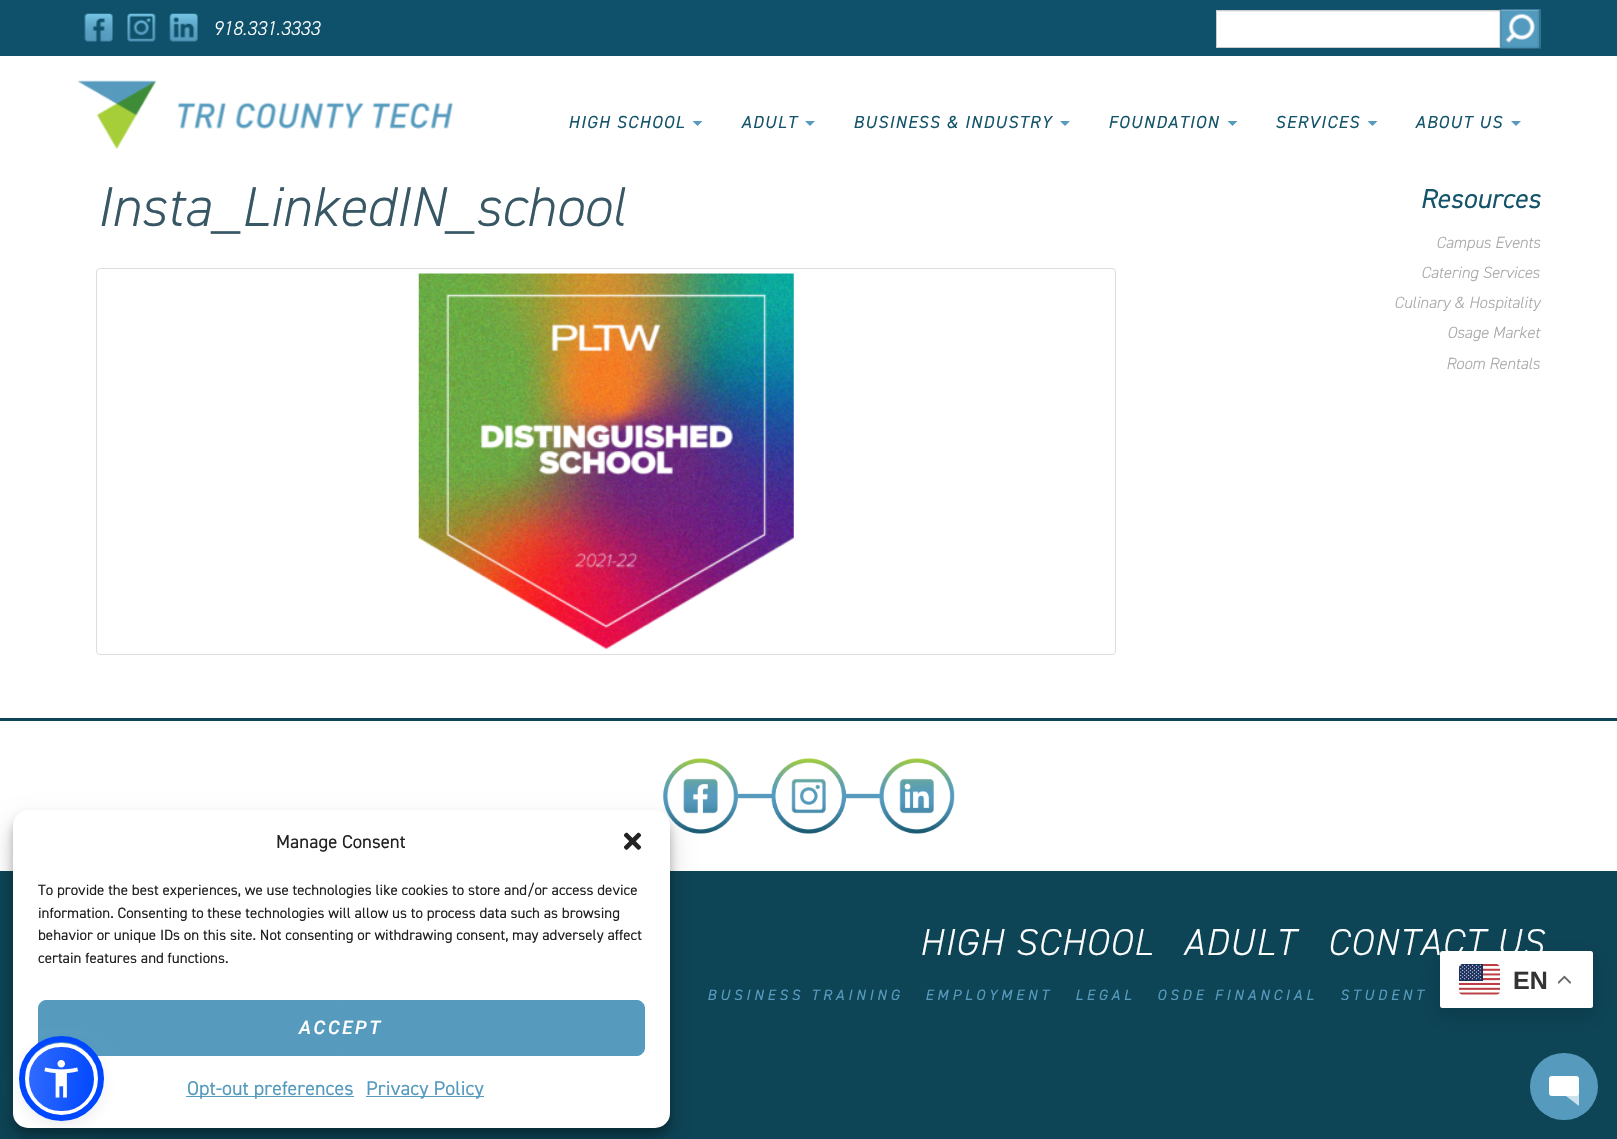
void draw(SkCanvas* canvas) {
    SkPaint paint;
    paint.setAntiAlias(true);
    auto spacedText = [&](const char* s, float x, float y, const SkFont& font, const SkPaint& ink, float letter, float word) {
        std::vector<SkGlyphID> glyphs(font.countText(s, strlen(s), SkTextEncoding::kUTF8));
        std::vector<float> xs(glyphs.size());
        font.textToGlyphs(s, strlen(s), SkTextEncoding::kUTF8, glyphs);
        font.getXPos(glyphs, xs, x);
        float extra = 0;
        for (size_t i = 0; i < glyphs.size(); i++) {
            xs[i] += extra;
            extra += letter + word * (glyphs[i] == font.unicharToGlyph(' '));
        }
        canvas->drawTextBlob(SkTextBlob::MakeFromPosHGlyphs(glyphs, xs, y, font), 0, 0, ink);
    };
    canvas->clear(0xFFFFFFFF);
    paint.setColor(0xFF0F516A);
    canvas->drawRect(SkRect::MakeXYWH(0, 0, 1617, 56), paint);
    canvas->drawImageRect(SkImages::DeferredFromEncodedData(SkData::MakeFromFileName("img1.png")), SkRect::MakeXYWH(84, 13, 29, 29), SkSamplingOptions());
    canvas->drawImageRect(SkImages::DeferredFromEncodedData(SkData::MakeFromFileName("img2.png")), SkRect::MakeXYWH(127, 13, 29, 29), SkSamplingOptions());
    canvas->drawImageRect(SkImages::DeferredFromEncodedData(SkData::MakeFromFileName("img3.png")), SkRect::MakeXYWH(169, 13, 29, 29), SkSamplingOptions());
    SkFont font1(fontMgr->matchFamilyStyle("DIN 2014", SkFontStyle(300, SkFontStyle::kNormal_Width, SkFontStyle::kItalic_Slant)), 20);
    font1.setSubpixel(true);
    paint.setColor(0xFFFFFFFF);
    canvas->drawString("918.331.3333", 213, 35, font1, paint);
    canvas->drawRect(SkRect::MakeXYWH(1217, 11, 283, 36), paint);
    paint.setColor(0xFFECECEC);
    canvas->drawRect(SkRect::MakeXYWH(1218, 11, 282, 1), paint);
    paint.setStyle(SkPaint::kStroke_Style);
    paint.setStrokeWidth(1);
    paint.setColor(0xFFCCCCCC);
    canvas->drawRect(SkRect::MakeXYWH(1216.5f, 10.5f, 284, 37), paint);
    canvas->drawImageRect(SkImages::DeferredFromEncodedData(SkData::MakeFromFileName("img4.png")), SkRect::MakeXYWH(1499, 9, 42, 40), SkSamplingOptions());
    paint.setStyle(SkPaint::kFill_Style);
    paint.setColor(0x33FFFFFF);
    canvas->drawRect(SkRect::MakeXYWH(1501, 10, 38, 1), paint);
    paint.setColor(0x26000000);
    canvas->drawPath(SkPathBuilder().moveTo(1500, 9).lineTo(1540, 9).lineTo(1539, 10).lineTo(1501, 10).close().detach(), paint);
    canvas->drawPath(SkPathBuilder().moveTo(1540, 9).lineTo(1540, 49).lineTo(1539, 48).lineTo(1539, 10).close().detach(), paint);
    paint.setColor(0x40000000);
    canvas->drawPath(SkPathBuilder().moveTo(1540, 49).lineTo(1500, 49).lineTo(1501, 48).lineTo(1539, 48).close().detach(), paint);
    paint.setColor(0x26000000);
    canvas->drawPath(SkPathBuilder().moveTo(1500, 49).lineTo(1500, 9).lineTo(1501, 10).lineTo(1501, 48).close().detach(), paint);
    canvas->drawImageRect(SkImages::DeferredFromEncodedData(SkData::MakeFromFileName("img5.png")), SkRect::MakeXYWH(78, 80, 375, 69), SkSamplingOptions());
    SkFont font2(fontMgr->matchFamilyStyle("DIN 2014", SkFontStyle::Italic()), 17.5f);
    font2.setSubpixel(true);
    paint.setColor(0xFF15556C);
    spacedText("HIGH SCHOOL", 568, 128, font2, paint, 1.25f, 0);
    paint.setColor(0xFF569BBE);
    canvas->drawPath(SkPathBuilder().moveTo(692.5f, 121).lineTo(702.5f, 121).lineTo(697.5f, 126).close().detach(), paint);
    paint.setColor(0xFF15556C);
    spacedText("ADULT", 741, 128, font2, paint, 1.25f, 0);
    paint.setColor(0xFF569BBE);
    canvas->drawPath(SkPathBuilder().moveTo(805, 121).lineTo(815, 121).lineTo(810, 126).close().detach(), paint);
    paint.setColor(0xFF15556C);
    spacedText("BUSINESS & INDUSTRY", 853, 128, font2, paint, 1.25f, 0);
    paint.setColor(0xFF569BBE);
    canvas->drawPath(SkPathBuilder().moveTo(1060, 121).lineTo(1070, 121).lineTo(1065, 126).close().detach(), paint);
    paint.setColor(0xFF15556C);
    spacedText("FOUNDATION", 1108, 128, font2, paint, 1.25f, 0);
    paint.setColor(0xFF569BBE);
    canvas->drawPath(SkPathBuilder().moveTo(1227.5f, 121).lineTo(1237.5f, 121).lineTo(1232.5f, 126).close().detach(), paint);
    paint.setColor(0xFF15556C);
    spacedText("SERVICES", 1275, 128, font2, paint, 1.25f, 0);
    paint.setColor(0xFF569BBE);
    canvas->drawPath(SkPathBuilder().moveTo(1367.5f, 121).lineTo(1377.5f, 121).lineTo(1372.5f, 126).close().detach(), paint);
    paint.setColor(0xFF15556C);
    spacedText("ABOUT US", 1415, 128, font2, paint, 1.25f, 0);
    paint.setColor(0xFF569BBE);
    canvas->drawPath(SkPathBuilder().moveTo(1511, 121).lineTo(1521, 121).lineTo(1516, 126).close().detach(), paint);
    SkFont font3(fontMgr->matchFamilyStyle("DIN 2014", SkFontStyle(300, SkFontStyle::kNormal_Width, SkFontStyle::kItalic_Slant)), 56.25f);
    font3.setSubpixel(true);
    paint.setColor(0xFF375765);
    canvas->drawString("Insta_LinkedIN_school", 96, 226, font3, paint);
    paint.setStyle(SkPaint::kStroke_Style);
    paint.setColor(0xFFDDDDDD);
    canvas->drawRoundRect(SkRect::MakeXYWH(96.5f, 268.5f, 1019, 386), 3.5f, 3.5f, paint);
    canvas->drawImageRect(SkImages::DeferredFromEncodedData(SkData::MakeFromFileName("img6.png")), SkRect::MakeXYWH(418, 273, 376, 376), SkSamplingOptions());
    SkFont font4(fontMgr->matchFamilyStyle("DIN 2014", SkFontStyle::Italic()), 27.5f);
    font4.setSubpixel(true);
    paint.setStyle(SkPaint::kFill_Style);
    paint.setColor(0xFF15556C);
    canvas->drawString("Resources", 1420, 208, font4, paint);
    SkFont font5(fontMgr->matchFamilyStyle("DIN 2014", SkFontStyle(300, SkFontStyle::kNormal_Width, SkFontStyle::kItalic_Slant)), 16.25f);
    font5.setSubpixel(true);
    paint.setColor(0xFFA6A6A6);
    canvas->drawString("Campus Events", 1436, 248, font5, paint);
    canvas->drawString("Catering Services", 1421, 278, font5, paint);
    canvas->drawString("Culinary & Hospitality", 1394, 308, font5, paint);
    canvas->drawString("Osage Market", 1447, 338, font5, paint);
    canvas->drawString("Room Rentals", 1446, 369, font5, paint);
    paint.setColor(0xFF0D4456);
    canvas->drawRect(SkRect::MakeXYWH(0, 718, 1617, 3), paint);
    canvas->drawImageRect(SkImages::DeferredFromEncodedData(SkData::MakeFromFileName("img7.png")), SkRect::MakeXYWH(663, 758, 75, 76), SkSamplingOptions());
    canvas->drawImageRect(SkImages::DeferredFromEncodedData(SkData::MakeFromFileName("img8.png")), SkRect::MakeXYWH(737, 758, 143, 76), SkSamplingOptions());
    canvas->drawImageRect(SkImages::DeferredFromEncodedData(SkData::MakeFromFileName("img9.png")), SkRect::MakeXYWH(879, 758, 76, 76), SkSamplingOptions());
    canvas->drawRect(SkRect::MakeXYWH(0, 871, 1617, 268), paint);
    paint.setColor(0x3B000000);
    paint.setMaskFilter(SkMaskFilter::MakeBlur(kNormal_SkBlurStyle, 4));
    canvas->drawRoundRect(SkRect::MakeXYWH(13, 818, 657, 317), 15, 15, paint);
    paint.setMaskFilter(nullptr);
    paint.setColor(0x30000000);
    paint.setMaskFilter(SkMaskFilter::MakeBlur(kNormal_SkBlurStyle, 12.5f));
    canvas->drawRoundRect(SkRect::MakeXYWH(13, 823, 657, 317), 15, 15, paint);
    paint.setMaskFilter(nullptr);
    paint.setColor(0xFFFFFFFF);
    canvas->drawRoundRect(SkRect::MakeXYWH(13, 810, 657, 318), 15, 15, paint);
    SkFont font6(fontMgr->matchFamilyStyle("DIN 2014", SkFontStyle::Normal()), 18.75f);
    font6.setSubpixel(true);
    paint.setColor(0xFF222222);
    canvas->drawString("Manage Consent", 276, 848, font6, paint);
    canvas->drawImageRect(SkImages::DeferredFromEncodedData(SkData::MakeFromFileName("img10.png")), SkRect::MakeXYWH(623, 832, 19, 18), SkSamplingOptions());
    SkFont font7(fontMgr->matchFamilyStyle("DIN 2014", SkFontStyle::Normal()), 15);
    font7.setSubpixel(true);
    canvas->drawString("To provide the best experiences, we use technologies like cookies to store and/or access device", 38, 895, font7, paint);
    canvas->drawString("information. Consenting to these technologies will allow us to process data such as browsing", 38, 918, font7, paint);
    canvas->drawString("behavior or unique IDs on this site. Not consenting or withdrawing consent, may adversely affect", 38, 940, font7, paint);
    canvas->drawString("certain features and functions.", 38, 963, font7, paint);
    paint.setColor(0xFF569BBE);
    canvas->drawRoundRect(SkRect::MakeXYWH(38.5f, 1000.5f, 606, 55), 7.5f, 7.5f, paint);
    paint.setStyle(SkPaint::kStroke_Style);
    canvas->drawRoundRect(SkRect::MakeXYWH(38.5f, 1000.5f, 606, 55), 7.5f, 7.5f, paint);
    SkFont font8(fontMgr->matchFamilyStyle("Roboto", SkFontStyle(500, SkFontStyle::kNormal_Width, SkFontStyle::kItalic_Slant)), 18.75f);
    font8.setSubpixel(true);
    paint.setStyle(SkPaint::kFill_Style);
    paint.setColor(0xFFFFFFFF);
    spacedText("ACCEPT", 299, 1034, font8, paint, 2.5f, 0);
    paint.setColor(0xFF569BBE);
    canvas->drawRect(SkRect::MakeXYWH(186, 1096, 168, 1), paint);
    SkFont font9(fontMgr->matchFamilyStyle("DIN 2014", SkFontStyle::Normal()), 20);
    font9.setSubpixel(true);
    canvas->drawString("Opt-out preferences", 187, 1095, font9, paint);
    canvas->drawRect(SkRect::MakeXYWH(366, 1096, 118, 1), paint);
    canvas->drawString("Privacy Policy", 366, 1095, font9, paint);
    SkFont font10(fontMgr->matchFamilyStyle("DIN 2014", SkFontStyle(300, SkFontStyle::kNormal_Width, SkFontStyle::kItalic_Slant)), 37.5f);
    font10.setSubpixel(true);
    paint.setColor(0xFFFFFFFF);
    spacedText("HIGH SCHOOL", 919, 955, font10, paint, 1.25f, 0);
    spacedText("ADULT", 1183, 955, font10, paint, 1.25f, 0);
    spacedText("CONTACT US", 1327, 955, font10, paint, 1.25f, 0);
    SkFont font11(fontMgr->matchFamilyStyle("DIN 2014", SkFontStyle::Italic()), 15);
    font11.setSubpixel(true);
    paint.setColor(0xFF569BBE);
    spacedText("BUSINESS TRAINING", 707, 1000, font11, paint, 3.75f, 0);
    spacedText("EMPLOYMENT", 925, 1000, font11, paint, 3.75f, 0);
    spacedText("LEGAL", 1075, 1000, font11, paint, 3.75f, 0);
    spacedText("OSDE FINANCIAL", 1157, 1000, font11, paint, 3.75f, 0);
    spacedText("STUDENT", 1340, 1000, font11, paint, 3.75f, 0);
    paint.setColor(0x26000000);
    paint.setMaskFilter(SkMaskFilter::MakeBlur(kNormal_SkBlurStyle, 9.5f));
    canvas->drawRoundRect(SkRect::MakeXYWH(1440, 958, 153, 56), 2.5f, 2.5f, paint);
    paint.setMaskFilter(nullptr);
    paint.setColor(0xFFFFFFFF);
    canvas->drawRoundRect(SkRect::MakeXYWH(1440, 951, 153, 57), 2.5f, 2.5f, paint);
    canvas->drawImageRect(SkImages::DeferredFromEncodedData(SkData::MakeFromFileName("img11.png")), SkRect::MakeXYWH(1459, 964, 41, 31), SkSamplingOptions());
    SkFont font12(fontMgr->matchFamilyStyle("Liberation Sans", SkFontStyle::Bold()), 25);
    font12.setSubpixel(true);
    paint.setColor(0xFF333333);
    canvas->drawString("EN", 1513, 989, font12, paint);
    canvas->drawImageRect(SkImages::DeferredFromEncodedData(SkData::MakeFromFileName("img12.png")), SkRect::MakeXYWH(1558, 975, 13, 9), SkSamplingOptions());
    paint.setColor(0x335D6494);
    paint.setMaskFilter(SkMaskFilter::MakeBlur(kNormal_SkBlurStyle, 2.5f));
    canvas->drawRoundRect(SkRect::MakeXYWH(25, 1045, 73, 73), 36.5f, 36.5f, paint);
    paint.setMaskFilter(nullptr);
    paint.setColor(0x26252C61);
    paint.setMaskFilter(SkMaskFilter::MakeBlur(kNormal_SkBlurStyle, 9.5f));
    canvas->drawRoundRect(SkRect::MakeXYWH(25, 1049, 73, 72), 36, 36, paint);
    paint.setMaskFilter(nullptr);
    canvas->save();
    canvas->clipPath(SkPathBuilder().moveTo(61, 1043).lineTo(62, 1043).cubicTo(82, 1043, 98, 1059, 98, 1079).cubicTo(98, 1099, 82, 1115, 62, 1115).lineTo(61, 1115).cubicTo(41, 1115, 25, 1099, 25, 1079).cubicTo(25, 1059, 41, 1043, 61, 1043).close().detach(), true);
    {
        const SkColor colors[] = {0xFF326CFF, 0xFF0048FF};
        const float stops[] = {0, 1};
        const SkPoint ends[] = {{26, 1075}, {97, 1082}};
        paint.setShader(SkGradientShader::MakeLinear(ends, colors, stops, 2, SkTileMode::kClamp));
        paint.setAlpha(255);
    }
    canvas->drawRect(SkRect::MakeXYWH(29, 1046, 65, 65), paint);
    canvas->restore();
    paint.setStyle(SkPaint::kStroke_Style);
    paint.setStrokeWidth(4);
    paint.setShader(nullptr);
    paint.setColor(0xFFFFFFFF);
    canvas->drawRoundRect(SkRect::MakeXYWH(27, 1045, 69, 68), 34, 34, paint);
    paint.setStrokeWidth(6);
    paint.setColor(0xFF0048FF);
    canvas->drawCircle(61.5f, 1078.5f, 39.5f, paint);
    canvas->drawImageRect(SkImages::DeferredFromEncodedData(SkData::MakeFromFileName("img13.png")), SkRect::MakeXYWH(44, 1060, 35, 38), SkSamplingOptions());
    paint.setStyle(SkPaint::kFill_Style);
    paint.setColor(0xFF569BBE);
    canvas->drawRoundRect(SkRect::MakeXYWH(1530, 1053, 68, 67), 33.5f, 33.5f, paint);
    paint.setColor(0xFFFFFFFF);
    canvas->drawRoundRect(SkRect::MakeXYWH(1549, 1076, 30, 20), 3, 3, paint);
    paint.setColor(0xB3FFFFFF);
    canvas->drawPath(SkPathBuilder().moveTo(1564, 1094.5f).lineTo(1579, 1094.5f).lineTo(1579, 1106).close().detach(), paint);
}
